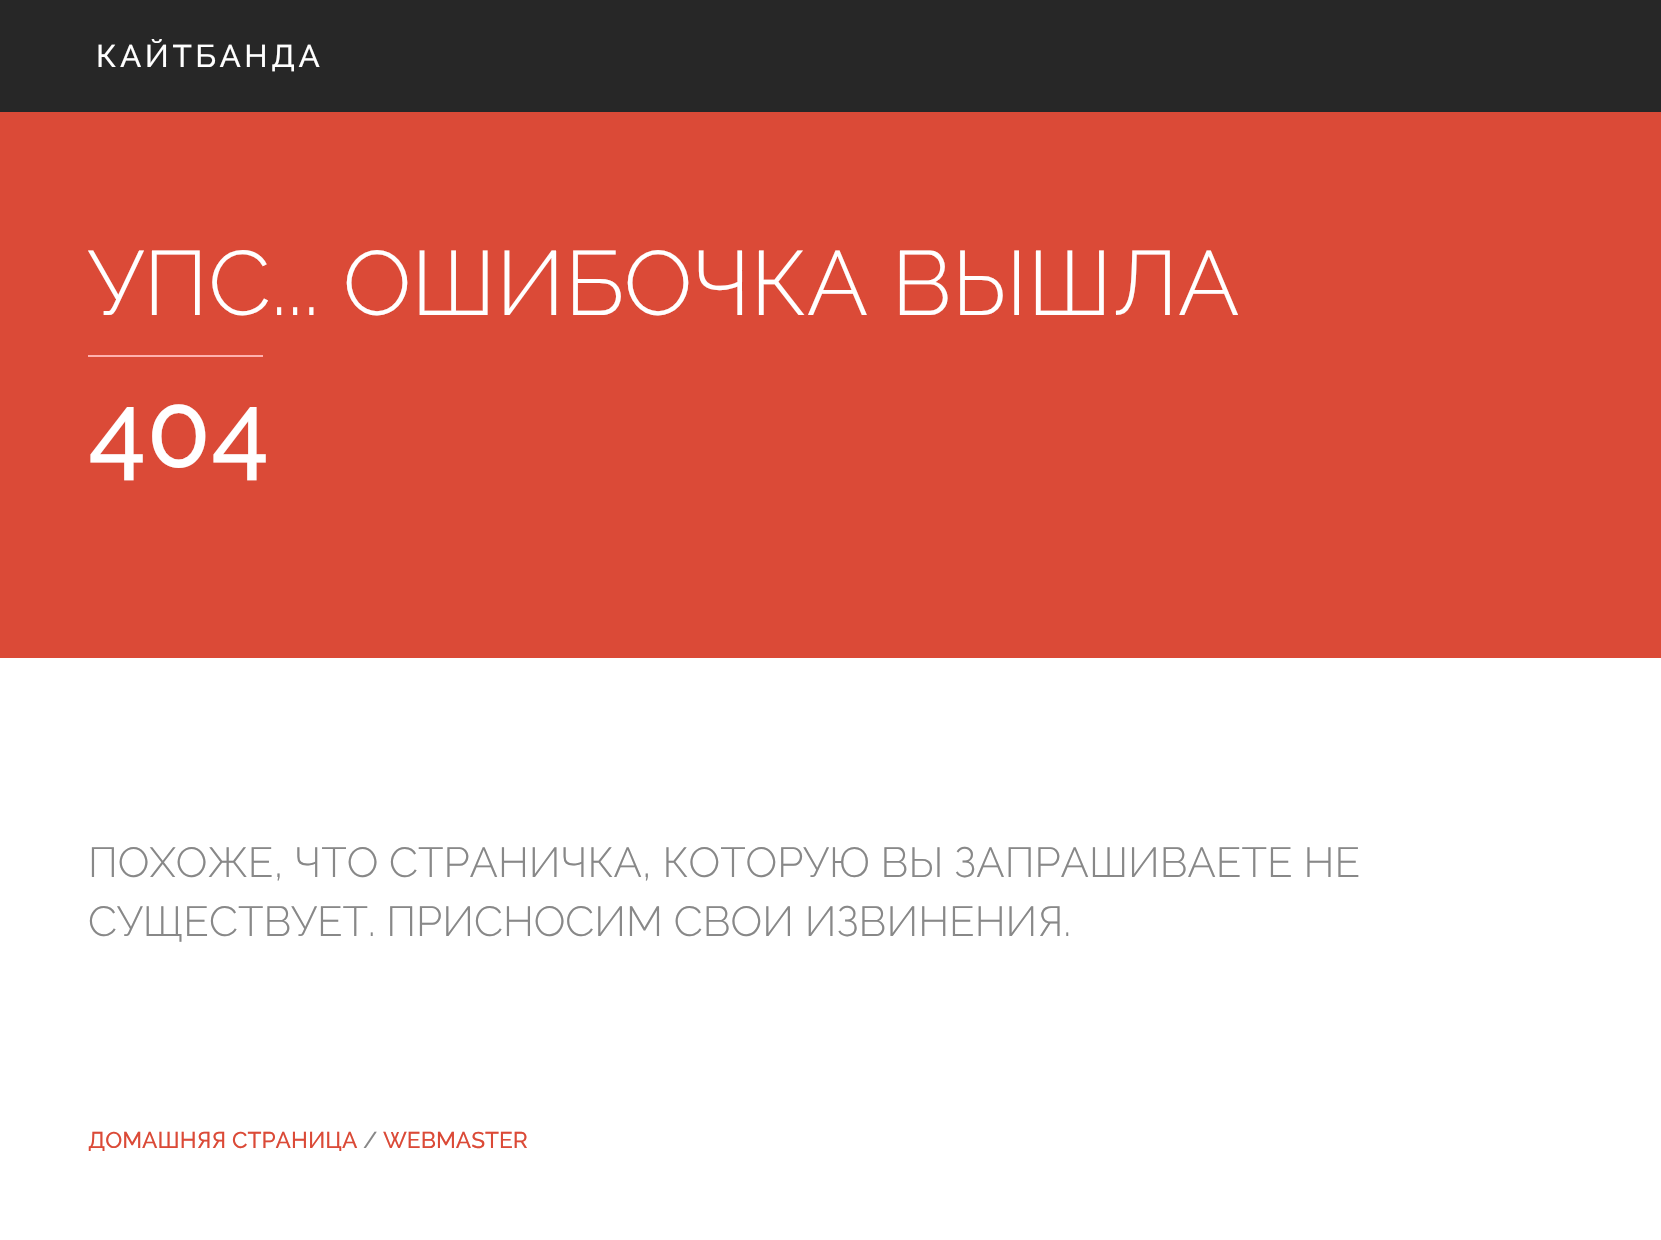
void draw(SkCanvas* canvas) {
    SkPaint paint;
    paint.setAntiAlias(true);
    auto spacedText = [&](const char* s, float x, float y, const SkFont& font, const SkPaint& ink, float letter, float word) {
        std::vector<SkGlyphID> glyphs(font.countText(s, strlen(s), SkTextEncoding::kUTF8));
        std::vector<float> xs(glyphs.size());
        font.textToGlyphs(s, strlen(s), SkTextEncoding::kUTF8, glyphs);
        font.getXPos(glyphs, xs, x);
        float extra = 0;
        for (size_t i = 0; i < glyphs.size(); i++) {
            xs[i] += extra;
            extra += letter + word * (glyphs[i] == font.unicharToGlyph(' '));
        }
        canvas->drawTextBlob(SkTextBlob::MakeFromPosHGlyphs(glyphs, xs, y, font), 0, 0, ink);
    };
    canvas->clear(0xFFFFFFFF);
    paint.setColor(0xFF272727);
    canvas->drawRect(SkRect::MakeXYWH(0, 0, 1661, 112), paint);
    SkFont font1(fontMgr->matchFamilyStyle("Raleway", SkFontStyle(500, SkFontStyle::kNormal_Width, SkFontStyle::kUpright_Slant)), 31.5f);
    font1.setSubpixel(true);
    paint.setColor(0xFFFFFFFF);
    spacedText("КАЙТБАНДА", 96, 67, font1, paint, 3.5f, 0);
    paint.setColor(0xFFDB4A37);
    canvas->drawRect(SkRect::MakeXYWH(0, 112, 1661, 546), paint);
    SkFont font2(fontMgr->matchFamilyStyle("Raleway", SkFontStyle(300, SkFontStyle::kNormal_Width, SkFontStyle::kUpright_Slant)), 91);
    font2.setSubpixel(true);
    paint.setColor(0xFFFFFFFF);
    canvas->drawString("УПС... ОШИБОЧКА ВЫШЛА", 88, 315, font2, paint);
    paint.setColor(0xFFFFB1AE);
    canvas->drawRect(SkRect::MakeXYWH(88, 355, 175, 2), paint);
    SkFont font3(fontMgr->matchFamilyStyle("Raleway", SkFontStyle(500, SkFontStyle::kNormal_Width, SkFontStyle::kUpright_Slant)), 105);
    font3.setSubpixel(true);
    paint.setColor(0xFFFFFFFF);
    canvas->drawString("404", 88, 467, font3, paint);
    SkFont font4(fontMgr->matchFamilyStyle("Raleway", SkFontStyle(300, SkFontStyle::kNormal_Width, SkFontStyle::kUpright_Slant)), 42);
    font4.setSubpixel(true);
    paint.setColor(0xFF888888);
    canvas->drawString("ПОХОЖЕ, ЧТО СТРАНИЧКА, КОТОРУЮ ВЫ ЗАПРАШИВАЕТЕ НЕ", 88, 877, font4, paint);
    canvas->drawString("СУЩЕСТВУЕТ. ПРИСНОСИМ СВОИ ИЗВИНЕНИЯ.", 88, 936, font4, paint);
    SkFont font5(fontMgr->matchFamilyStyle("Raleway", SkFontStyle(500, SkFontStyle::kNormal_Width, SkFontStyle::kUpright_Slant)), 22.75f);
    font5.setSubpixel(true);
    paint.setColor(0xFFDB4A37);
    canvas->drawString("ДОМАШНЯЯ СТРАНИЦА", 88, 1148, font5, paint);
    paint.setColor(0xFF888888);
    canvas->drawString("/", 363, 1148, font5, paint);
    paint.setColor(0xFFDB4A37);
    canvas->drawString("WEBMASTER", 383, 1148, font5, paint);
}
